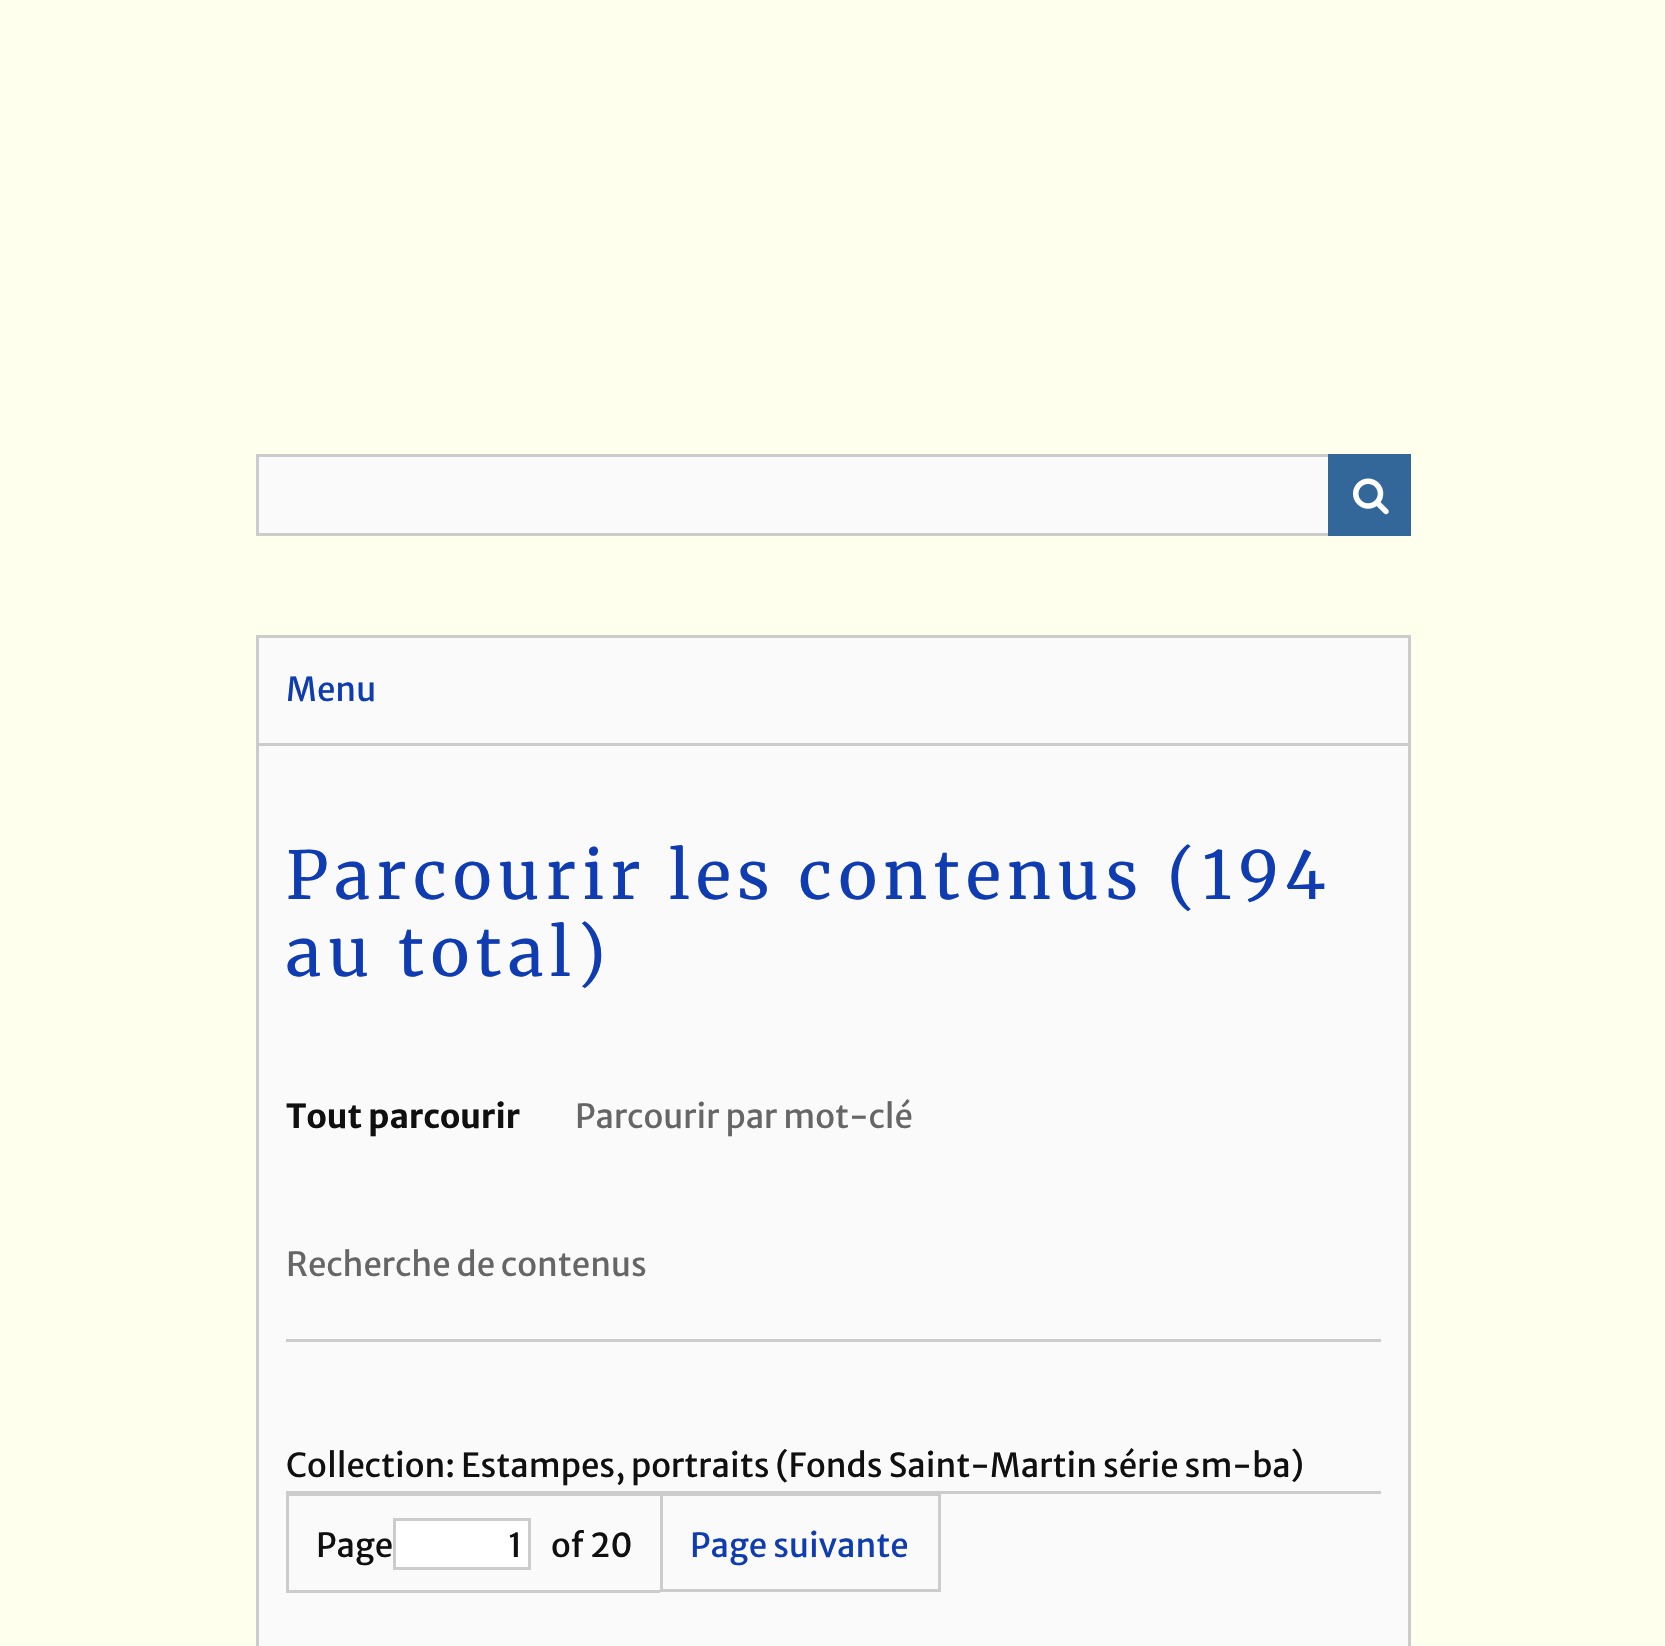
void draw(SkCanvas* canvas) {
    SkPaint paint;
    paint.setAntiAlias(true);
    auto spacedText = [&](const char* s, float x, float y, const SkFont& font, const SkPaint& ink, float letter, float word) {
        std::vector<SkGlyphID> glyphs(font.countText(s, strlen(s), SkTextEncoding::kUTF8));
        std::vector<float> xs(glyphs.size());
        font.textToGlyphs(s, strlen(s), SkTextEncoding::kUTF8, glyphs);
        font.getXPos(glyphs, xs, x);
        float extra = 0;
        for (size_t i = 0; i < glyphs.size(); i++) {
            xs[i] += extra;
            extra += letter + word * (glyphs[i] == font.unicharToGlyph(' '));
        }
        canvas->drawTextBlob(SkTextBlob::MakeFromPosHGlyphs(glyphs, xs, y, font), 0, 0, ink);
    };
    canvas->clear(0xFFFFFFEE);
    paint.setColor(0xFFFAFAFA);
    canvas->drawRect(SkRect::MakeXYWH(259, 457, 1069, 76), paint);
    paint.setStyle(SkPaint::kStroke_Style);
    paint.setStrokeWidth(3);
    paint.setColor(0xFFCCCCCC);
    canvas->drawRect(SkRect::MakeXYWH(257.5f, 455.5f, 1152, 79), paint);
    paint.setStyle(SkPaint::kFill_Style);
    paint.setColor(0xFF336699);
    canvas->drawRect(SkRect::MakeXYWH(1328, 454, 83, 82), paint);
    canvas->drawImageRect(SkImages::DeferredFromEncodedData(SkData::MakeFromFileName("img1.png")), SkRect::MakeXYWH(1353, 478, 36, 37), SkSamplingOptions());
    paint.setColor(0xFFFAFAFA);
    canvas->drawRect(SkRect::MakeXYWH(259, 638, 1149, 105), paint);
    paint.setColor(0xFFCCCCCC);
    canvas->drawRect(SkRect::MakeXYWH(256, 635, 1155, 3), paint);
    canvas->drawRect(SkRect::MakeXYWH(1408, 635, 3, 108), paint);
    canvas->drawRect(SkRect::MakeXYWH(256, 635, 3, 108), paint);
    SkFont font1(fontMgr->matchFamilyStyle("Merriweather Sans", SkFontStyle::Normal()), 33);
    font1.setSubpixel(true);
    paint.setColor(0xFF103CB1);
    canvas->drawString("Menu", 286, 701, font1, paint);
    paint.setColor(0xFFFAFAFA);
    canvas->drawRect(SkRect::MakeXYWH(257.5f, 744.5f, 1152, 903), paint);
    paint.setStyle(SkPaint::kStroke_Style);
    paint.setColor(0xFFCCCCCC);
    canvas->drawRect(SkRect::MakeXYWH(257.5f, 744.5f, 1152, 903), paint);
    SkFont font2(fontMgr->matchFamilyStyle("Merriweather", SkFontStyle::Normal()), 66);
    font2.setSubpixel(true);
    paint.setStyle(SkPaint::kFill_Style);
    paint.setColor(0xFF103CB1);
    spacedText("Parcourir les contenus (194", 286, 899, font2, paint, 6.6f, 0);
    spacedText("au total)", 286, 976, font2, paint, 6.6f, 0);
    paint.setColor(0xFFCCCCCC);
    canvas->drawRect(SkRect::MakeXYWH(286, 1339, 1095, 3), paint);
    SkFont font3(fontMgr->matchFamilyStyle("Merriweather Sans", SkFontStyle::Bold()), 33);
    font3.setSubpixel(true);
    paint.setColor(0xFF101010);
    canvas->drawString("Tout parcourir", 286, 1128, font3, paint);
    paint.setColor(0xFF666666);
    canvas->drawString("Parcourir par mot-clé", 575, 1128, font1, paint);
    canvas->drawString("Recherche de contenus", 286, 1276, font1, paint);
    paint.setColor(0xFFCCCCCC);
    canvas->drawRect(SkRect::MakeXYWH(286, 1491, 1095, 3), paint);
    paint.setColor(0xFF101010);
    canvas->drawString("Collection: Estampes, portraits (Fonds Saint-Martin série sm-ba)", 286, 1477, font1, paint);
    paint.setColor(0xFFCCCCCC);
    canvas->drawRect(SkRect::MakeXYWH(286, 1494, 374, 2), paint);
    canvas->drawRect(SkRect::MakeXYWH(286, 1590, 374, 3), paint);
    canvas->drawRect(SkRect::MakeXYWH(286, 1493, 3, 99), paint);
    paint.setColor(0xFF101010);
    canvas->drawString("Page", 316, 1557, font1, paint);
    paint.setColor(0xFFFFFFFF);
    canvas->drawRect(SkRect::MakeXYWH(394.5f, 1519.5f, 135, 49), paint);
    paint.setStyle(SkPaint::kStroke_Style);
    paint.setColor(0xFFCCCCCC);
    canvas->drawRect(SkRect::MakeXYWH(394.5f, 1519.5f, 135, 49), paint);
    paint.setStyle(SkPaint::kFill_Style);
    paint.setColor(0xFF101010);
    canvas->drawString("1", 508, 1557, font1, paint);
    canvas->drawString("of 20", 551, 1557, font1, paint);
    paint.setStyle(SkPaint::kStroke_Style);
    paint.setColor(0xFFCCCCCC);
    canvas->drawRect(SkRect::MakeXYWH(661.5f, 1494.5f, 278, 96), paint);
    paint.setStyle(SkPaint::kFill_Style);
    paint.setColor(0xFF103CB1);
    canvas->drawString("Page suivante", 690, 1557, font1, paint);
}
